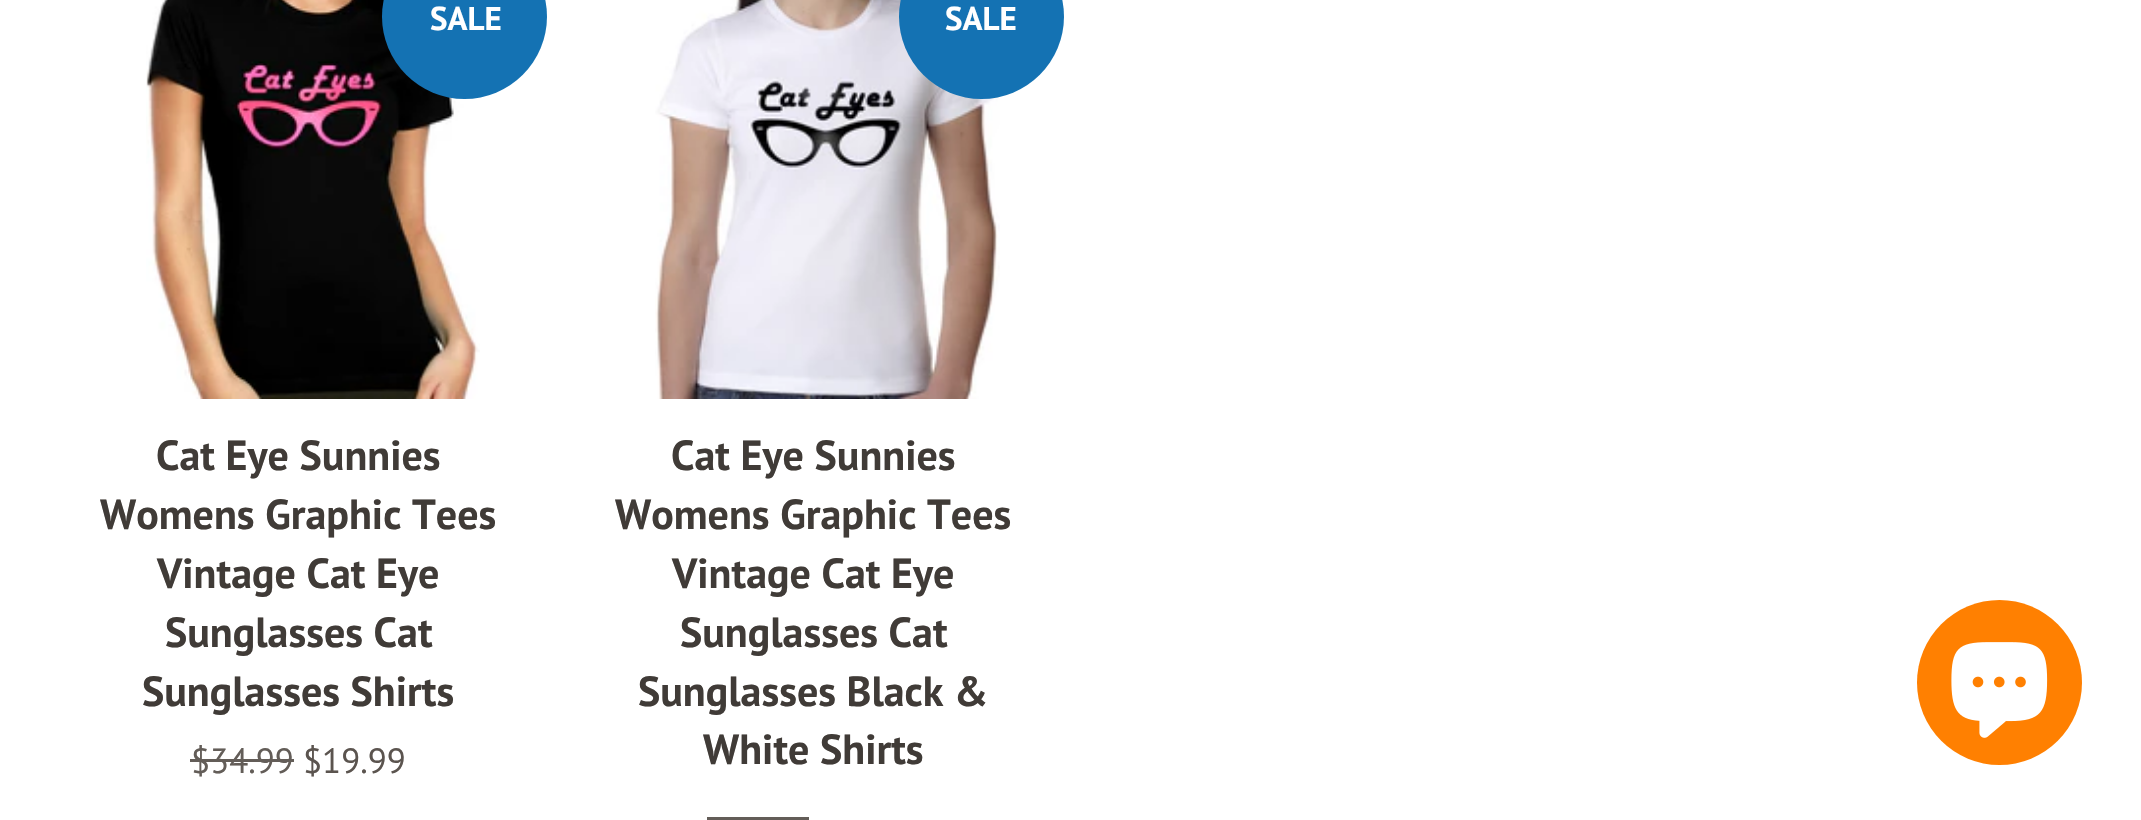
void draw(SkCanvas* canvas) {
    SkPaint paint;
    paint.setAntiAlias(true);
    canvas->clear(0xFFFFFFFF);
    canvas->drawImageRect(SkImages::DeferredFromEncodedData(SkData::MakeFromFileName("img1.png")), SkRect::MakeXYWH(146, 0, 334, 399), SkSamplingOptions());
    paint.setColor(0xFF1472B3);
    canvas->drawCircle(464.5f, 16.5f, 82.5f, paint);
    SkFont font1(fontMgr->matchFamilyStyle("PT Sans", SkFontStyle::Bold()), 33);
    font1.setSubpixel(true);
    paint.setColor(0xFFFFFFFF);
    canvas->drawString("SALE", 430, 30, font1, paint);
    SkFont font2(fontMgr->matchFamilyStyle("PT Sans", SkFontStyle::Bold()), 42);
    font2.setSubpixel(true);
    paint.setColor(0xFF403B37);
    canvas->drawString("Cat Eye Sunnies", 156, 470, font2, paint);
    canvas->drawString("Womens Graphic Tees", 100, 529, font2, paint);
    canvas->drawString("Vintage Cat Eye", 157, 588, font2, paint);
    canvas->drawString("Sunglasses Cat", 165, 647, font2, paint);
    canvas->drawString("Sunglasses Shirts", 142, 706, font2, paint);
    SkFont font3(fontMgr->matchFamilyStyle("PT Sans", SkFontStyle::Normal()), 35);
    font3.setSubpixel(true);
    paint.setColor(0xFF635D58);
    canvas->drawString("$34.99", 191, 773, font3, paint);
    canvas->drawRect(SkRect::MakeXYWH(190, 759, 104, 3), paint);
    paint.setColor(0xFF5B544F);
    canvas->drawString("$19.99", 303, 773, font3, paint);
    canvas->drawImageRect(SkImages::DeferredFromEncodedData(SkData::MakeFromFileName("img2.png")), SkRect::MakeXYWH(655, 0, 345, 399), SkSamplingOptions());
    paint.setColor(0xFF1472B3);
    canvas->drawCircle(981.5f, 16.5f, 82.5f, paint);
    paint.setColor(0xFFFFFFFF);
    canvas->drawString("SALE", 945, 30, font1, paint);
    paint.setColor(0xFF403B37);
    canvas->drawString("Cat Eye Sunnies", 671, 470, font2, paint);
    canvas->drawString("Womens Graphic Tees", 615, 529, font2, paint);
    canvas->drawString("Vintage Cat Eye", 672, 588, font2, paint);
    canvas->drawString("Sunglasses Cat", 680, 647, font2, paint);
    canvas->drawString("Sunglasses Black &", 638, 706, font2, paint);
    canvas->drawString("White Shirts", 703, 764, font2, paint);
    paint.setColor(0xFF635D58);
    canvas->drawRect(SkRect::MakeXYWH(707, 817, 102, 3), paint);
    paint.setColor(0xFFFF8001);
    canvas->drawCircle(1999.5f, 682.5f, 82.5f, paint);
    canvas->drawImageRect(SkImages::DeferredFromEncodedData(SkData::MakeFromFileName("img3.png")), SkRect::MakeXYWH(1951, 642, 97, 96), SkSamplingOptions());
}
